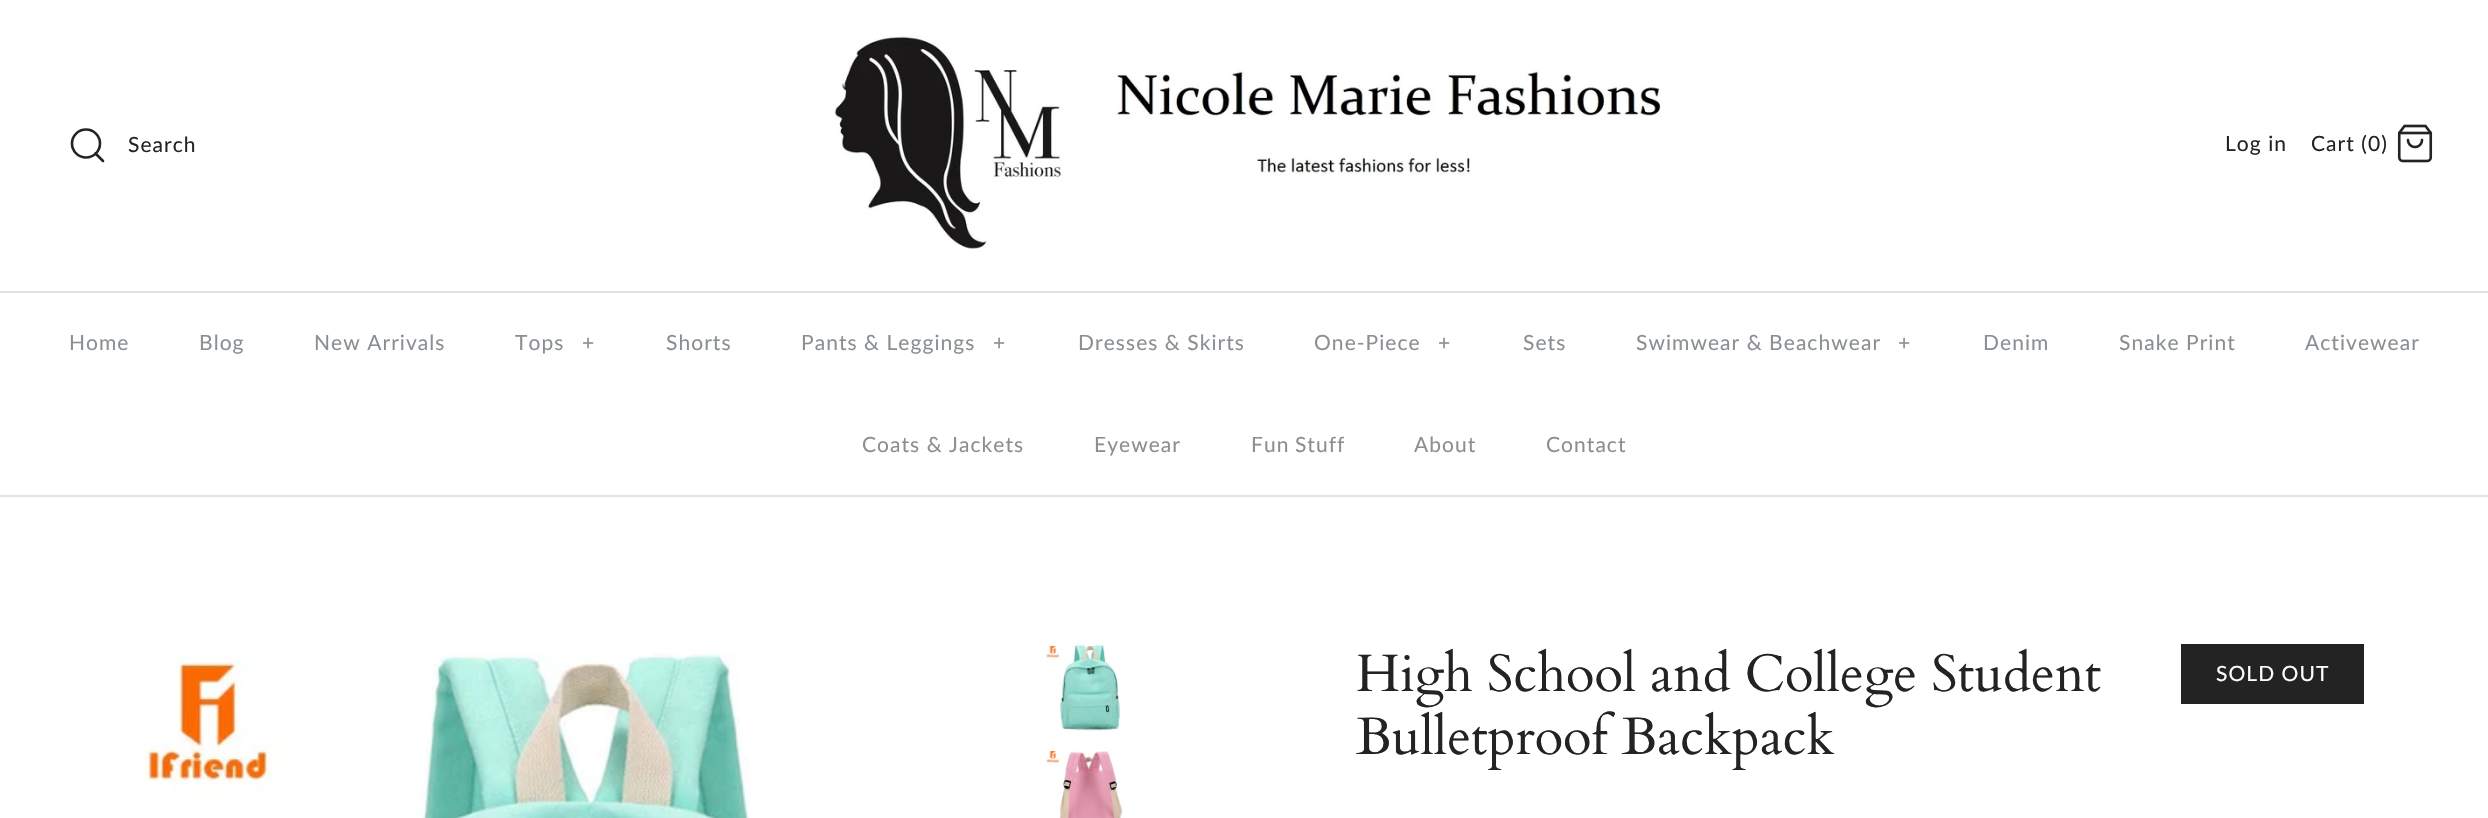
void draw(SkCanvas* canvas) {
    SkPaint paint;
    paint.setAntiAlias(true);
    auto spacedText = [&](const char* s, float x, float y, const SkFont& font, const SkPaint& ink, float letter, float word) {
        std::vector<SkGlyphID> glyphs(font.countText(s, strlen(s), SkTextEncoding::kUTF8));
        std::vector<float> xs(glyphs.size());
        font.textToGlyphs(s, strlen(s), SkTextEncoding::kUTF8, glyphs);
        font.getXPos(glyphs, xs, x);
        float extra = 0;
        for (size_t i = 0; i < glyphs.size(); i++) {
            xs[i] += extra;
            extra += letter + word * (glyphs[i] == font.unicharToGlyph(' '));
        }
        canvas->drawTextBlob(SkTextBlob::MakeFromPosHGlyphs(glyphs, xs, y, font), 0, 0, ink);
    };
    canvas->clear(0xFFFFFFFF);
    canvas->drawImageRect(SkImages::DeferredFromEncodedData(SkData::MakeFromFileName("img1.png")), SkRect::MakeXYWH(834, 35, 827, 214), SkSamplingOptions());
    paint.setStyle(SkPaint::kStroke_Style);
    paint.setStrokeWidth(2.6f);
    paint.setColor(0xFF232323);
    canvas->drawCircle(86, 143.5f, 14, paint);
    paint.setStrokeCap(SkPaint::kRound_Cap);
    paint.setStrokeJoin(SkPaint::kRound_Join);
    canvas->drawPath(SkPathBuilder().moveTo(103, 161).lineTo(95.5f, 153.5f).detach(), paint);
    SkFont font1(fontMgr->matchFamilyStyle("Lato", SkFontStyle::Normal()), 21);
    font1.setSubpixel(true);
    paint.setStyle(SkPaint::kFill_Style);
    spacedText("Search", 128, 152, font1, paint, 1.05f, 0);
    spacedText("Log in", 2225, 151, font1, paint, 1.05f, 0);
    spacedText("Cart (0)", 2311, 151, font1, paint, 1.05f, 0);
    canvas->drawImageRect(SkImages::DeferredFromEncodedData(SkData::MakeFromFileName("img2.png")), SkRect::MakeXYWH(2397, 124, 36, 39), SkSamplingOptions());
    paint.setColor(0xFFE2E2E2);
    canvas->drawRect(SkRect::MakeXYWH(0, 495, 2488, 2), paint);
    canvas->drawRect(SkRect::MakeXYWH(0, 291, 2488, 2), paint);
    paint.setColor(0xFF8A8F93);
    spacedText("Home", 69, 350, font1, paint, 1.05f, 0);
    spacedText("Blog", 199, 350, font1, paint, 1.05f, 0);
    spacedText("New Arrivals", 314, 350, font1, paint, 1.05f, 0);
    spacedText("Tops", 515, 350, font1, paint, 1.05f, 0);
    spacedText("+", 582, 350, font1, paint, 1.05f, 0);
    spacedText("Shorts", 666, 350, font1, paint, 1.05f, 0);
    spacedText("Pants & Leggings", 801, 350, font1, paint, 1.05f, 0);
    spacedText("+", 993, 350, font1, paint, 1.05f, 0);
    spacedText("Dresses & Skirts", 1078, 350, font1, paint, 1.05f, 0);
    spacedText("One-Piece", 1314, 350, font1, paint, 1.05f, 0);
    spacedText("+", 1438, 350, font1, paint, 1.05f, 0);
    spacedText("Sets", 1523, 350, font1, paint, 1.05f, 0);
    spacedText("Swimwear & Beachwear", 1636, 350, font1, paint, 1.05f, 0);
    spacedText("+", 1898, 350, font1, paint, 1.05f, 0);
    spacedText("Denim", 1983, 350, font1, paint, 1.05f, 0);
    spacedText("Snake Print", 2119, 350, font1, paint, 1.05f, 0);
    spacedText("Activewear", 2305, 350, font1, paint, 1.05f, 0);
    spacedText("Coats & Jackets", 862, 452, font1, paint, 1.05f, 0);
    spacedText("Eyewear", 1094, 452, font1, paint, 1.05f, 0);
    spacedText("Fun Stuff", 1251, 452, font1, paint, 1.05f, -1);
    spacedText("About", 1414, 452, font1, paint, 1.05f, 0);
    spacedText("Contact", 1546, 452, font1, paint, 1.05f, 0);
    canvas->drawImageRect(SkImages::DeferredFromEncodedData(SkData::MakeFromFileName("img3.png")), SkRect::MakeXYWH(144, 653, 606, 165), SkSamplingOptions());
    canvas->drawImageRect(SkImages::DeferredFromEncodedData(SkData::MakeFromFileName("img4.png")), SkRect::MakeXYWH(1046, 644, 74, 87), SkSamplingOptions());
    canvas->drawImageRect(SkImages::DeferredFromEncodedData(SkData::MakeFromFileName("img5.png")), SkRect::MakeXYWH(1046, 749, 77, 69), SkSamplingOptions());
    SkFont font2(fontMgr->matchFamilyStyle("Cardo", SkFontStyle::Normal()), 52.5f);
    font2.setSubpixel(true);
    paint.setColor(0xFF232323);
    canvas->drawString("High School and College Student", 1356, 691, font2, paint);
    canvas->drawString("Bulletproof Backpack", 1356, 754, font2, paint);
    canvas->drawRect(SkRect::MakeXYWH(2181, 644, 183, 60), paint);
    paint.setColor(0xFFFFFFFF);
    spacedText("SOLD OUT", 2216, 681, font1, paint, 1.05f, 0);
}
